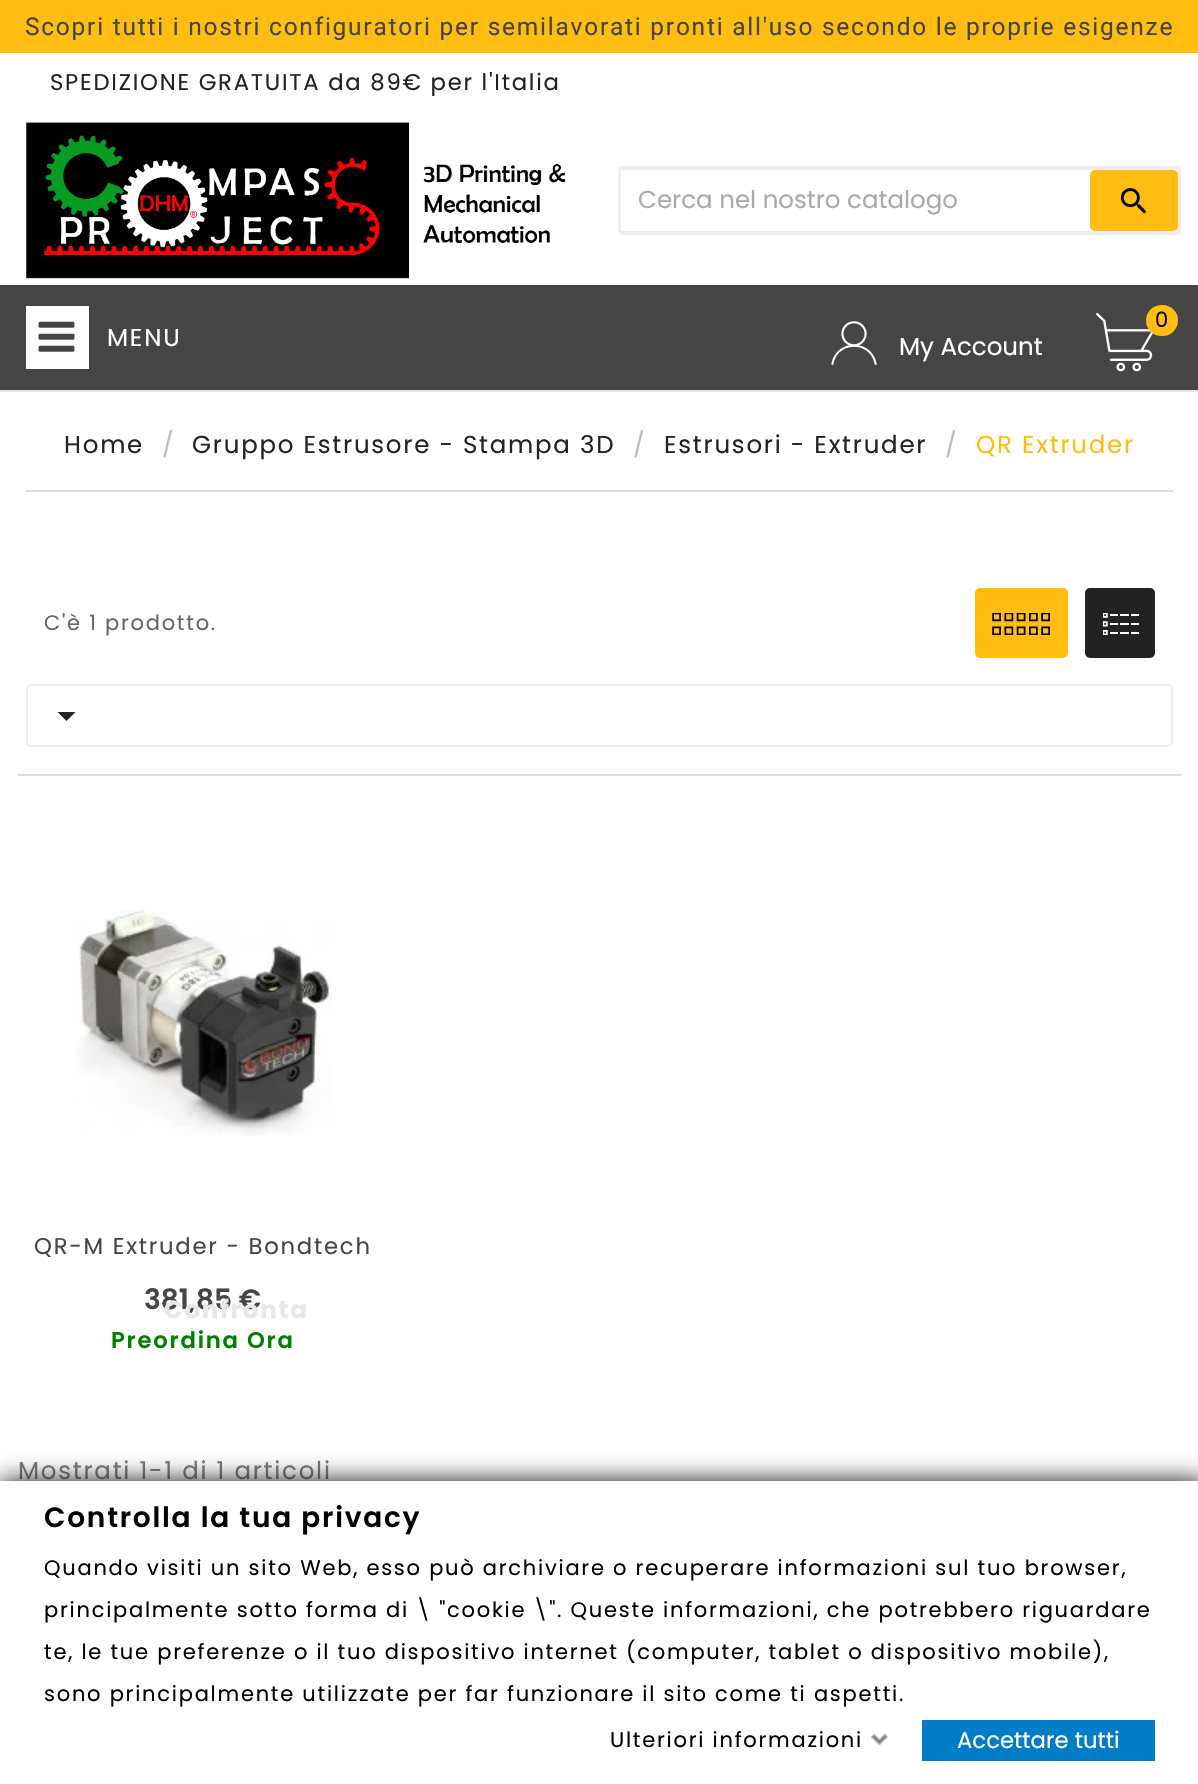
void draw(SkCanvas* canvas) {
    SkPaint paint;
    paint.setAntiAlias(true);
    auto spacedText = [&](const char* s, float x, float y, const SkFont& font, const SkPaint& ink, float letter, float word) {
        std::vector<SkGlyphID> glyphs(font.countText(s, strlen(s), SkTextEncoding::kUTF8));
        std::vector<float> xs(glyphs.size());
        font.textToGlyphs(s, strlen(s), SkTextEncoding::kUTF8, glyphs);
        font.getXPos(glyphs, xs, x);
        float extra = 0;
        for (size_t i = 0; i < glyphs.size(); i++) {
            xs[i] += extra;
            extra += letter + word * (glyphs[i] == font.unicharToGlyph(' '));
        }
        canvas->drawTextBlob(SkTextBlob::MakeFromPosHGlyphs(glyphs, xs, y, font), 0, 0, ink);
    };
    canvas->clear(0xFFFFFFFF);
    paint.setColor(0xFFE5E5E5);
    canvas->drawRect(SkRect::MakeXYWH(0, 390, 1198, 2), paint);
    paint.setColor(0xFFFFBD12);
    canvas->drawRect(SkRect::MakeXYWH(0, 0, 1198, 53), paint);
    SkFont font1(fontMgr->matchFamilyStyle("Roboto", SkFontStyle::Normal()), 24.5f);
    font1.setSubpixel(true);
    paint.setColor(0xFF454545);
    spacedText("Scopri tutti i nostri configuratori per semilavorati pronti all'uso secondo le proprie esigenze", 25, 35, font1, paint, 1.75f, 0);
    SkFont font2(fontMgr->matchFamilyStyle("Poppins", SkFontStyle::Normal()), 22.75f);
    font2.setSubpixel(true);
    paint.setColor(0xFF232323);
    spacedText("SPEDIZIONE GRATUITA da 89€ per l'Italia", 50, 90, font2, paint, 1.75f, 0);
    canvas->drawImageRect(SkImages::DeferredFromEncodedData(SkData::MakeFromFileName("img1.png")), SkRect::MakeXYWH(26, 122, 540, 157), SkSamplingOptions());
    paint.setStyle(SkPaint::kStroke_Style);
    paint.setStrokeWidth(4);
    paint.setColor(0xFFEEEEEE);
    canvas->drawRoundRect(SkRect::MakeXYWH(620, 168, 559, 65), 3, 3, paint);
    paint.setStyle(SkPaint::kFill_Style);
    paint.setColor(0xFFFFFFFF);
    canvas->drawRect(SkRect::MakeXYWH(621, 170, 2, 61), paint);
    SkFont font3(fontMgr->matchFamilyStyle("Poppins", SkFontStyle::Normal()), 24.5f);
    font3.setSubpixel(true);
    paint.setColor(0xFFAAAAAA);
    canvas->drawString("Cerca nel nostro catalogo", 638, 208, font3, paint);
    paint.setColor(0xFFFFBD12);
    canvas->drawRoundRect(SkRect::MakeXYWH(1090, 170, 88, 61), 5, 5, paint);
    canvas->drawImageRect(SkImages::DeferredFromEncodedData(SkData::MakeFromFileName("img2.png")), SkRect::MakeXYWH(1120, 188, 27, 26), SkSamplingOptions());
    paint.setColor(0xFF454545);
    canvas->drawRect(SkRect::MakeXYWH(0, 285, 1198, 105), paint);
    canvas->drawImageRect(SkImages::DeferredFromEncodedData(SkData::MakeFromFileName("img3.png")), SkRect::MakeXYWH(1096, 312, 57, 60), SkSamplingOptions());
    paint.setColor(0xFFFFBD12);
    canvas->drawRoundRect(SkRect::MakeXYWH(1146, 305, 32, 31), 15.5f, 15.5f, paint);
    SkFont font4(fontMgr->matchFamilyStyle("Poppins", SkFontStyle::Normal()), 21);
    font4.setSubpixel(true);
    paint.setColor(0xFF000000);
    spacedText("0", 1155, 327, font4, paint, 1.75f, 0);
    canvas->drawImageRect(SkImages::DeferredFromEncodedData(SkData::MakeFromFileName("img4.png")), SkRect::MakeXYWH(831, 321, 46, 44), SkSamplingOptions());
    paint.setColor(0xFFFFFFFF);
    canvas->drawString("My Account", 899, 355, font3, paint);
    canvas->drawRect(SkRect::MakeXYWH(26, 306, 63, 63), paint);
    canvas->drawImageRect(SkImages::DeferredFromEncodedData(SkData::MakeFromFileName("img5.png")), SkRect::MakeXYWH(38, 321, 37, 31), SkSamplingOptions());
    spacedText("MENU", 107, 346, font3, paint, 1.75f, 0);
    paint.setColor(0xFFDDDDDD);
    canvas->drawRect(SkRect::MakeXYWH(26, 490, 1147, 2), paint);
    paint.setColor(0xFF232323);
    spacedText("Home", 64, 453, font3, paint, 1.75f, 0);
    paint.setColor(0xFFBDBDBD);
    spacedText("/", 162, 453, font3, paint, 1.75f, 0);
    paint.setColor(0xFF232323);
    spacedText("Gruppo Estrusore - Stampa 3D", 192, 453, font3, paint, 1.75f, 0);
    paint.setColor(0xFFBDBDBD);
    spacedText("/", 633, 453, font3, paint, 1.75f, 0);
    paint.setColor(0xFF232323);
    spacedText("Estrusori - Extruder", 664, 453, font3, paint, 1.75f, 0);
    paint.setColor(0xFFBDBDBD);
    spacedText("/", 945, 453, font3, paint, 1.75f, 0);
    paint.setColor(0xFFFFBD12);
    spacedText("QR Extruder", 976, 453, font3, paint, 1.75f, 0);
    paint.setColor(0xFFDDDDDD);
    canvas->drawRect(SkRect::MakeXYWH(18, 774, 1163, 2), paint);
    paint.setColor(0xFF666666);
    spacedText("C'è 1 prodotto.", 44, 630, font4, paint, 1.75f, 0);
    paint.setColor(0xFFFFBD12);
    canvas->drawRoundRect(SkRect::MakeXYWH(975, 588, 93, 70), 5, 5, paint);
    canvas->drawImageRect(SkImages::DeferredFromEncodedData(SkData::MakeFromFileName("img6.png")), SkRect::MakeXYWH(992, 613, 58, 22), SkSamplingOptions());
    paint.setColor(0xFF222222);
    canvas->drawRoundRect(SkRect::MakeXYWH(1085, 588, 70, 70), 5, 5, paint);
    canvas->drawImageRect(SkImages::DeferredFromEncodedData(SkData::MakeFromFileName("img7.png")), SkRect::MakeXYWH(1103, 613, 36, 22), SkSamplingOptions());
    paint.setStyle(SkPaint::kStroke_Style);
    paint.setStrokeWidth(2);
    paint.setColor(0xFFEEEEEE);
    canvas->drawRoundRect(SkRect::MakeXYWH(27, 685, 1145, 61), 4, 4, paint);
    paint.setStyle(SkPaint::kFill_Style);
    paint.setColor(0xFF232323);
    canvas->drawPath(SkPathBuilder().moveTo(57.5f, 712).lineTo(75.5f, 712).lineTo(66.5f, 721).close().detach(), paint);
    canvas->drawImageRect(SkImages::DeferredFromEncodedData(SkData::MakeFromFileName("img8.png")), SkRect::MakeXYWH(75, 910, 258, 226), SkSamplingOptions());
    paint.setColor(0xFF454545);
    spacedText("QR-M Extruder - Bondtech", 34, 1254, font2, paint, 1.75f, 0);
    SkFont font5(fontMgr->matchFamilyStyle("Poppins", SkFontStyle(600, SkFontStyle::kNormal_Width, SkFontStyle::kUpright_Slant)), 28);
    font5.setSubpixel(true);
    canvas->drawString("381,85 €", 144, 1309, font5, paint);
    SkFont font6(fontMgr->matchFamilyStyle("Poppins", SkFontStyle::Bold()), 24.5f);
    font6.setSubpixel(true);
    paint.setColor(0xFFE7E7E7);
    spacedText("Confronta", 164, 1318, font6, paint, 1.75f, 0);
    SkFont font7(fontMgr->matchFamilyStyle("Poppins", SkFontStyle(600, SkFontStyle::kNormal_Width, SkFontStyle::kUpright_Slant)), 22.75f);
    font7.setSubpixel(true);
    paint.setColor(0xFF008000);
    spacedText("Preordina Ora", 111, 1348, font7, paint, 1.75f, 0);
    paint.setColor(0xFF7A7A7A);
    spacedText("Mostrati 1-1 di 1 articoli", 18, 1479, font3, paint, 1.75f, 0);
    paint.setColor(0xFF121212);
    paint.setMaskFilter(SkMaskFilter::MakeBlur(kNormal_SkBlurStyle, 12));
    canvas->drawRect(SkRect::MakeXYWH(0, 1481, 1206, 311), paint);
    paint.setMaskFilter(nullptr);
    paint.setColor(0xFFFFFFFF);
    canvas->drawRect(SkRect::MakeXYWH(0, 1481, 1198, 303), paint);
    paint.setColor(0xFF000000);
    spacedText("Controlla la tua privacy", 44, 1527, font5, paint, 1.75f, 0);
    spacedText("Quando visiti un sito Web, esso può archiviare o recuperare informazioni sul tuo browser,", 44, 1575, font4, paint, 1.75f, 0);
    spacedText("principalmente sotto forma di \\ \"cookie \\\". Queste informazioni, che potrebbero riguardare", 44, 1617, font4, paint, 1.75f, 0);
    spacedText("te, le tue preferenze o il tuo dispositivo internet (computer, tablet o dispositivo mobile),", 44, 1659, font4, paint, 1.75f, 0);
    spacedText("sono principalmente utilizzate per far funzionare il sito come ti aspetti.", 44, 1701, font4, paint, 1.75f, 0);
    spacedText("Ulteriori informazioni", 610, 1747, font4, paint, 1.75f, 0);
    canvas->drawImageRect(SkImages::DeferredFromEncodedData(SkData::MakeFromFileName("img9.png")), SkRect::MakeXYWH(871, 1733, 17, 13), SkSamplingOptions());
    paint.setColor(0xFF007DC6);
    canvas->drawRect(SkRect::MakeXYWH(922, 1720, 233, 41), paint);
    paint.setColor(0xFFFFFFFF);
    canvas->drawString("Accettare tutti", 957, 1748, font2, paint);
}
